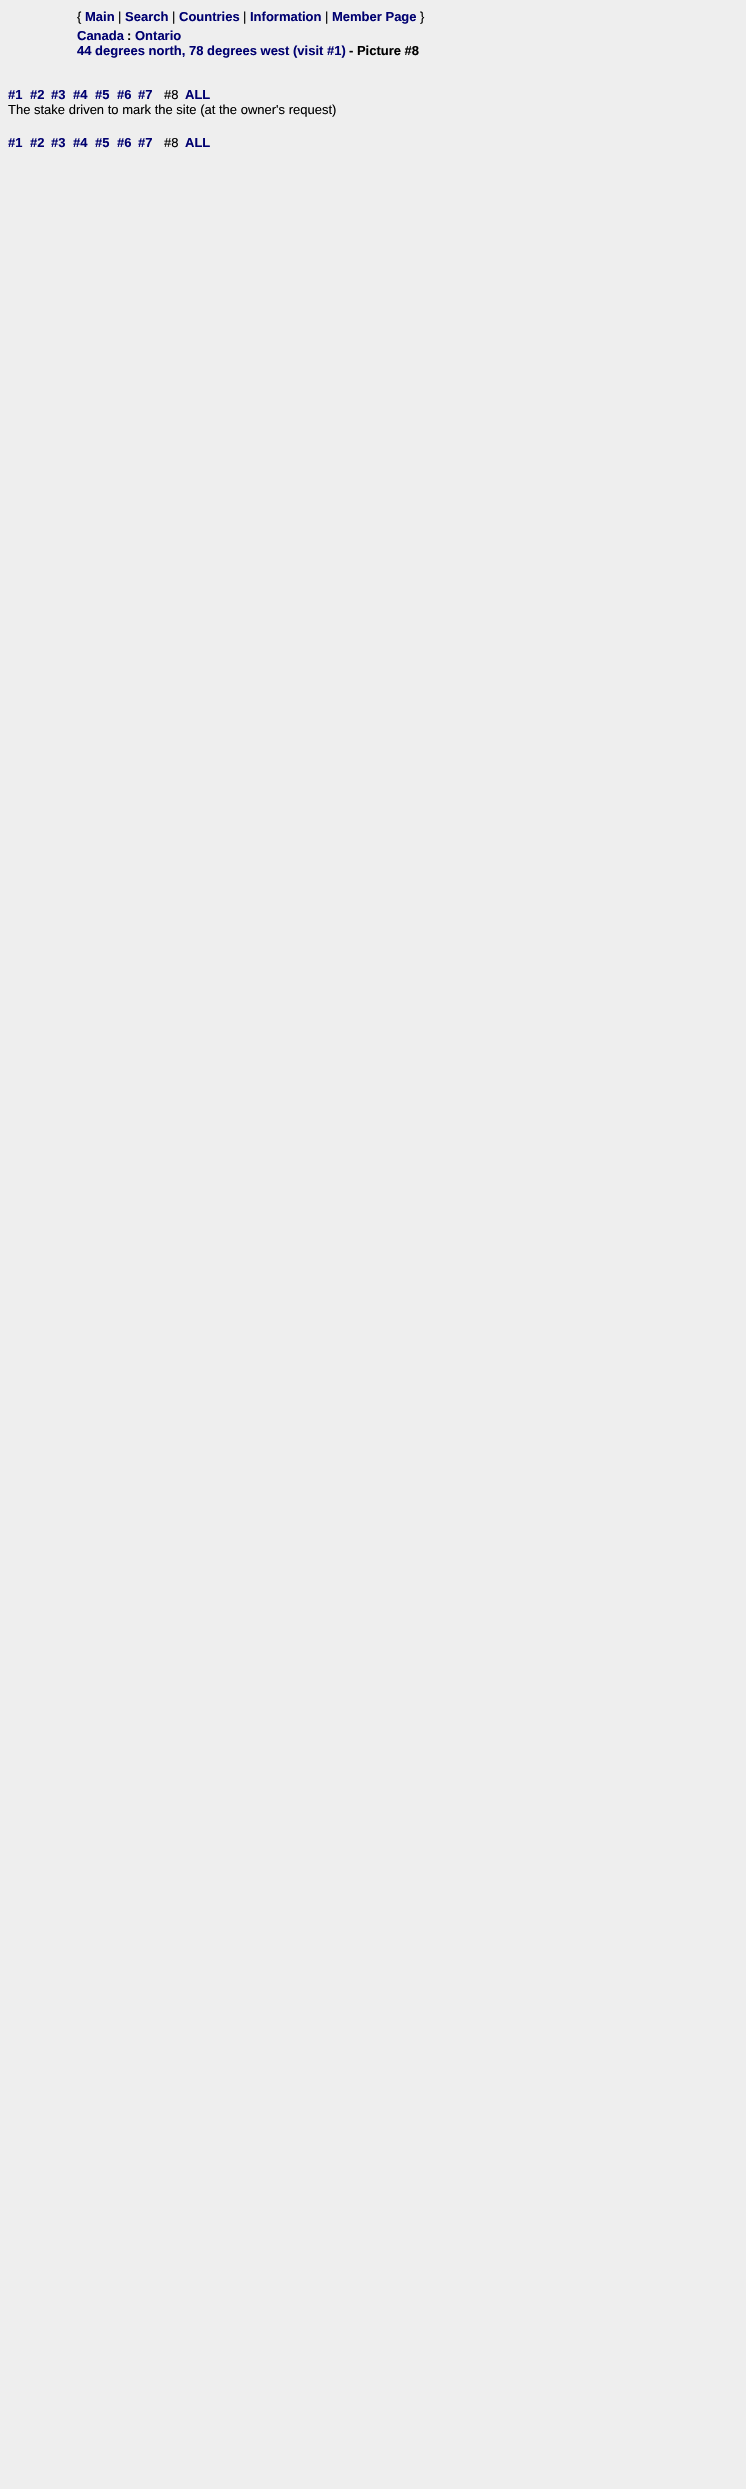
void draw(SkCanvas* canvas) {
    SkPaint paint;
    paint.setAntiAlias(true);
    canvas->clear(0xFFEEEEEE);
    SkFont font1(fontMgr->matchFamilyStyle("Liberation Sans", SkFontStyle::Normal()), 13);
    font1.setSubpixel(true);
    paint.setColor(0xFF000000);
    canvas->drawString("{", 77, 21, font1, paint);
    SkFont font2(fontMgr->matchFamilyStyle("Liberation Sans", SkFontStyle::Bold()), 13);
    font2.setSubpixel(true);
    paint.setColor(0xFF000070);
    canvas->drawString("Main", 85, 21, font2, paint);
    paint.setColor(0xFF000000);
    canvas->drawString("|", 118, 21, font1, paint);
    paint.setColor(0xFF000070);
    canvas->drawString("Search", 125, 21, font2, paint);
    paint.setColor(0xFF000000);
    canvas->drawString("|", 172, 21, font1, paint);
    paint.setColor(0xFF000070);
    canvas->drawString("Countries", 179, 21, font2, paint);
    paint.setColor(0xFF000000);
    canvas->drawString("|", 243, 21, font1, paint);
    paint.setColor(0xFF000070);
    canvas->drawString("Information", 250, 21, font2, paint);
    paint.setColor(0xFF000000);
    canvas->drawString("|", 325, 21, font1, paint);
    paint.setColor(0xFF000070);
    canvas->drawString("Member Page", 332, 21, font2, paint);
    paint.setColor(0xFF000000);
    canvas->drawString("}", 420, 21, font1, paint);
    paint.setColor(0xFF000070);
    canvas->drawString("Canada", 77, 40, font2, paint);
    paint.setColor(0xFF000000);
    canvas->drawString(":", 127, 40, font2, paint);
    paint.setColor(0xFF000070);
    canvas->drawString("Ontario", 135, 40, font2, paint);
    canvas->drawString("44 degrees north, 78 degrees west (visit #1)", 77, 55, font2, paint);
    paint.setColor(0xFF000000);
    canvas->drawString("- Picture #8", 349, 55, font2, paint);
    paint.setColor(0xFF000070);
    canvas->drawString("#1", 8, 99, font2, paint);
    canvas->drawString("#2", 30, 99, font2, paint);
    canvas->drawString("#3", 51, 99, font2, paint);
    canvas->drawString("#4", 73, 99, font2, paint);
    canvas->drawString("#5", 95, 99, font2, paint);
    canvas->drawString("#6", 117, 99, font2, paint);
    canvas->drawString("#7", 138, 99, font2, paint);
    paint.setColor(0xFF000000);
    canvas->drawString("#8", 164, 99, font1, paint);
    paint.setColor(0xFF000070);
    canvas->drawString("ALL", 185, 99, font2, paint);
    paint.setColor(0xFF000000);
    canvas->drawString("The stake driven to mark the site (at the owner's request)", 8, 114, font1, paint);
    paint.setColor(0xFF000070);
    canvas->drawString("#1", 8, 147, font2, paint);
    canvas->drawString("#2", 30, 147, font2, paint);
    canvas->drawString("#3", 51, 147, font2, paint);
    canvas->drawString("#4", 73, 147, font2, paint);
    canvas->drawString("#5", 95, 147, font2, paint);
    canvas->drawString("#6", 117, 147, font2, paint);
    canvas->drawString("#7", 138, 147, font2, paint);
    paint.setColor(0xFF000000);
    canvas->drawString("#8", 164, 147, font1, paint);
    paint.setColor(0xFF000070);
    canvas->drawString("ALL", 185, 147, font2, paint);
}
